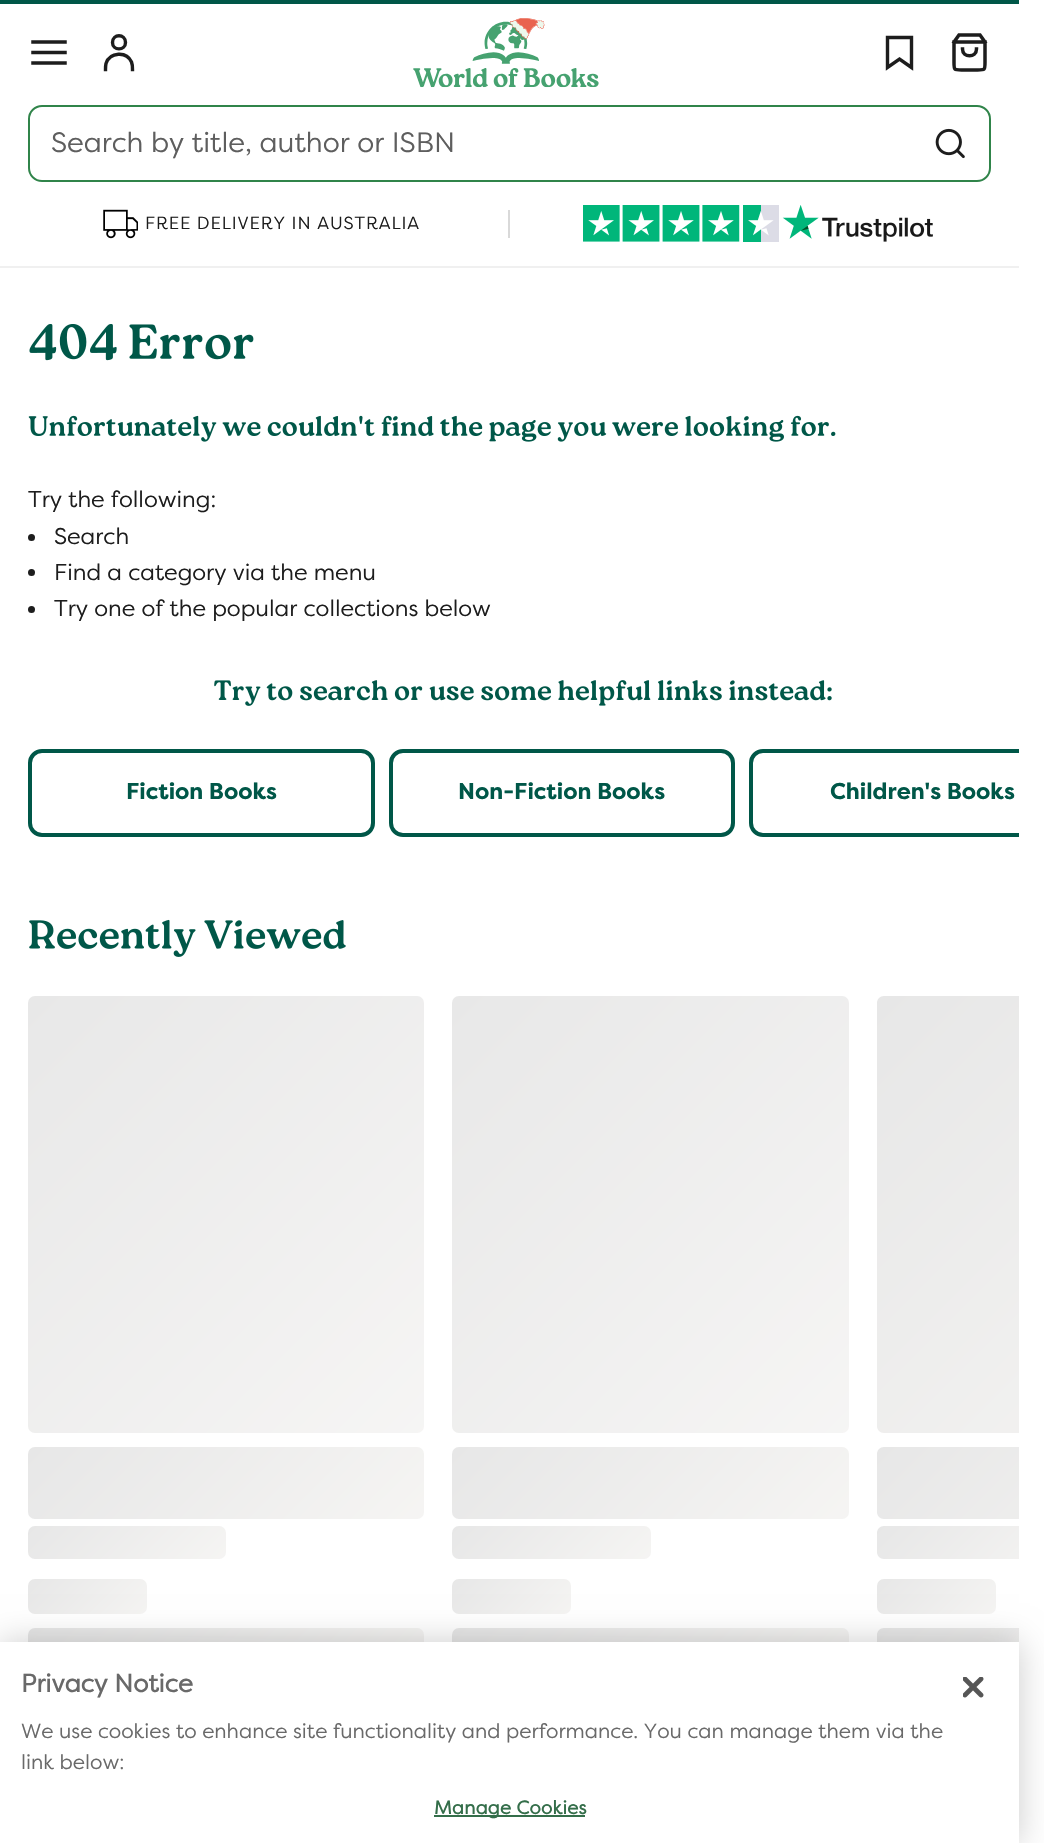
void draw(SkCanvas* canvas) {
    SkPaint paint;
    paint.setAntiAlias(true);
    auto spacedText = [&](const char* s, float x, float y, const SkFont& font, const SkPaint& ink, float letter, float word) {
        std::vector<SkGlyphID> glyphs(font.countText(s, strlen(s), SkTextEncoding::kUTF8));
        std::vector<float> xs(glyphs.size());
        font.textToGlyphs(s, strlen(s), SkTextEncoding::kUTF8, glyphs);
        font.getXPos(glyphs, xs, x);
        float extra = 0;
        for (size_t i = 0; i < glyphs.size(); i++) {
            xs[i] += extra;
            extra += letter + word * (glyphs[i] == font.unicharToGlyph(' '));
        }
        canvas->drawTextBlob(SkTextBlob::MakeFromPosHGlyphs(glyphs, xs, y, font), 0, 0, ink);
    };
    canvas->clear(0xFFFFFFFF);
    paint.setColor(0xFF005748);
    canvas->drawRect(SkRect::MakeXYWH(0, 0, 1019, 4), paint);
    paint.setStyle(SkPaint::kStroke_Style);
    paint.setStrokeWidth(3.5f);
    paint.setStrokeCap(SkPaint::kSquare_Cap);
    paint.setColor(0xFF1D1D1D);
    canvas->drawPath(SkPathBuilder().moveTo(33, 63).lineTo(65, 63).moveTo(33, 52.5f).lineTo(65, 52.5f).moveTo(33, 42).lineTo(65, 42).detach(), paint);
    paint.setStrokeWidth(3.4f);
    canvas->drawPath(SkPathBuilder().moveTo(132.5f, 69.5f).cubicTo(132.5f, 67, 132.5f, 64.5f, 131.5f, 62).cubicTo(126.5f, 51, 110, 52, 106, 63.5f).cubicTo(105.5f, 65.5f, 105.5f, 67.5f, 105.5f, 69.5f).moveTo(125.5f, 42.5f).cubicTo(125.5f, 51, 112.5f, 51, 112.5f, 42.5f).cubicTo(112.5f, 33.5f, 125.5f, 33.5f, 125.5f, 42.5f).close().detach(), paint);
    canvas->drawImageRect(SkImages::DeferredFromEncodedData(SkData::MakeFromFileName("img1.png")), SkRect::MakeXYWH(413, 18, 186, 70), SkSamplingOptions());
    paint.setStrokeCap(SkPaint::kRound_Cap);
    canvas->drawPath(SkPathBuilder().moveTo(911.5f, 67.5f).lineTo(899.5f, 59).lineTo(887.5f, 67.5f).lineTo(887.5f, 37.5f).lineTo(911.5f, 37.5f).close().detach(), paint);
    paint.setStrokeWidth(3.5f);
    paint.setStrokeCap(SkPaint::kSquare_Cap);
    canvas->drawPath(SkPathBuilder().moveTo(954, 42).lineTo(959, 35).lineTo(980, 35).lineTo(985, 42).moveTo(954, 42).lineTo(954, 62.5f).cubicTo(954, 70, 954, 70, 961.5f, 70).lineTo(977.5f, 70).cubicTo(985, 70, 985, 70, 985, 62.5f).lineTo(985, 42).moveTo(954, 42).lineTo(985, 42).moveTo(976.5f, 49).cubicTo(976.5f, 58, 962.5f, 58, 962.5f, 49).detach(), paint);
    paint.setStrokeWidth(2);
    paint.setStrokeCap(SkPaint::kButt_Cap);
    paint.setColor(0xFF30844A);
    canvas->drawRoundRect(SkRect::MakeXYWH(29, 106, 961, 75), 13, 13, paint);
    SkFont font1(fontMgr->matchFamilyStyle("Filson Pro", SkFontStyle::Normal()), 28);
    font1.setSubpixel(true);
    paint.setStyle(SkPaint::kFill_Style);
    paint.setColor(0xFF5E5E5E);
    canvas->drawString("Search by title, author or ISBN", 51, 152, font1, paint);
    canvas->drawImageRect(SkImages::DeferredFromEncodedData(SkData::MakeFromFileName("img2.png")), SkRect::MakeXYWH(935, 128, 30, 31), SkSamplingOptions());
    paint.setColor(0xFFF0F0F0);
    canvas->drawRect(SkRect::MakeXYWH(0, 266, 1019, 2), paint);
    canvas->drawImageRect(SkImages::DeferredFromEncodedData(SkData::MakeFromFileName("img3.png")), SkRect::MakeXYWH(103, 209, 35, 30), SkSamplingOptions());
    SkFont font2(fontMgr->matchFamilyStyle("Filson Pro", SkFontStyle::Normal()), 17.5f);
    font2.setSubpixel(true);
    paint.setColor(0xFF1D1D1D);
    spacedText("FREE DELIVERY IN AUSTRALIA", 145, 229, font2, paint, 0.9f, 0);
    paint.setColor(0xFFD9D9D9);
    canvas->drawRect(SkRect::MakeXYWH(508, 210, 2, 28), paint);
    canvas->drawImageRect(SkImages::DeferredFromEncodedData(SkData::MakeFromFileName("img4.png")), SkRect::MakeXYWH(583, 205, 350, 37), SkSamplingOptions());
    canvas->drawImageRect(SkImages::DeferredFromEncodedData(SkData::MakeFromFileName("img5.png")), SkRect::MakeXYWH(29, 324, 225, 37), SkSamplingOptions());
    canvas->drawImageRect(SkImages::DeferredFromEncodedData(SkData::MakeFromFileName("img6.png")), SkRect::MakeXYWH(28, 415, 808, 27), SkSamplingOptions());
    SkFont font3(fontMgr->matchFamilyStyle("Filson Pro", SkFontStyle::Normal()), 22.75f);
    font3.setSubpixel(true);
    paint.setColor(0xFF1D1D1D);
    canvas->drawString("Try the following:", 28, 507, font3, paint);
    canvas->drawCircle(31.5f, 537.5f, 3.5f, paint);
    canvas->drawString("Search", 54, 544, font3, paint);
    canvas->drawCircle(31.5f, 572.5f, 3.5f, paint);
    canvas->drawString("Find a category via the menu", 54, 580, font3, paint);
    canvas->drawCircle(31.5f, 609.5f, 3.5f, paint);
    canvas->drawString("Try one of the popular collections below", 54, 616, font3, paint);
    canvas->drawImageRect(SkImages::DeferredFromEncodedData(SkData::MakeFromFileName("img7.png")), SkRect::MakeXYWH(214, 680, 618, 26), SkSamplingOptions());
    paint.setStyle(SkPaint::kStroke_Style);
    paint.setStrokeWidth(4);
    paint.setColor(0xFF005748);
    canvas->drawRoundRect(SkRect::MakeXYWH(30, 751, 343, 84), 12, 12, paint);
    SkFont font4(fontMgr->matchFamilyStyle("Filson Pro", SkFontStyle::Bold()), 22.75f);
    font4.setSubpixel(true);
    paint.setStyle(SkPaint::kFill_Style);
    canvas->drawString("Fiction Books", 126, 799, font4, paint);
    paint.setStyle(SkPaint::kStroke_Style);
    canvas->drawRoundRect(SkRect::MakeXYWH(391, 751, 342, 84), 12, 12, paint);
    paint.setStyle(SkPaint::kFill_Style);
    canvas->drawString("Non-Fiction Books", 458, 799, font4, paint);
    canvas->save();
    canvas->clipRect(SkRect::MakeXYWH(28, 740, 991, 105));
    paint.setStyle(SkPaint::kStroke_Style);
    canvas->drawRoundRect(SkRect::MakeXYWH(751, 751, 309, 84), 12, 12, paint);
    canvas->restore();
    paint.setStyle(SkPaint::kFill_Style);
    canvas->drawString("Children's Books", 830, 799, font4, paint);
    canvas->drawImageRect(SkImages::DeferredFromEncodedData(SkData::MakeFromFileName("img8.png")), SkRect::MakeXYWH(29, 919, 317, 38), SkSamplingOptions());
    {
        const SkColor colors[] = {0xFFFFFFFF, 0xFFF9F9F9, 0xFFFAF9F8, 0xFFE8E8E8};
        const float stops[] = {0, 0.33f, 0.67f, 1};
        const SkPoint ends[] = {{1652, 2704}, {-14, 1038}};
        paint.setShader(SkGradientShader::MakeLinear(ends, colors, stops, 4, SkTileMode::kClamp));
        paint.setAlpha(255);
    }
    canvas->drawRoundRect(SkRect::MakeXYWH(28, 996, 396, 437), 7, 7, paint);
    {
        const SkColor colors[] = {0xFFFFFFFF, 0xFFF9F9F9, 0xFFFAF9F7, 0xFFE7E7E7};
        const float stops[] = {0, 0.33f, 0.67f, 1};
        const SkPoint ends[] = {{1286, 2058}, {352, 1124}};
        paint.setShader(SkGradientShader::MakeLinear(ends, colors, stops, 4, SkTileMode::kClamp));
        paint.setAlpha(255);
    }
    canvas->drawRoundRect(SkRect::MakeXYWH(28, 1447, 396, 72), 7, 7, paint);
    {
        const SkColor colors[] = {0xFFFFFFFF, 0xFFF9F9F9, 0xFFFAF9F7, 0xFFE7E7E7};
        const float stops[] = {0, 0.33f, 0.67f, 1};
        const SkPoint ends[] = {{655, 1824}, {193, 1362}};
        paint.setShader(SkGradientShader::MakeLinear(ends, colors, stops, 4, SkTileMode::kClamp));
        paint.setAlpha(255);
    }
    canvas->drawRoundRect(SkRect::MakeXYWH(28, 1526, 198, 33), 7, 7, paint);
    {
        const SkColor colors[] = {0xFFFFFFFF, 0xFFF9F9F9, 0xFFFAF9F7, 0xFFE7E7E7};
        const float stops[] = {0, 0.33f, 0.67f, 1};
        const SkPoint ends[] = {{420, 1803}, {112, 1495}};
        paint.setShader(SkGradientShader::MakeLinear(ends, colors, stops, 4, SkTileMode::kClamp));
        paint.setAlpha(255);
    }
    canvas->drawRoundRect(SkRect::MakeXYWH(28, 1579, 119, 35), 7, 7, paint);
    {
        const SkColor colors[] = {0xFFFFFFFF, 0xFFF9F9F9, 0xFFFAF9F7, 0xFFE7E7E7};
        const float stops[] = {0, 0.33f, 0.67f, 1};
        const SkPoint ends[] = {{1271, 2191}, {368, 1288}};
        paint.setShader(SkGradientShader::MakeLinear(ends, colors, stops, 4, SkTileMode::kClamp));
        paint.setAlpha(255);
    }
    canvas->drawRoundRect(SkRect::MakeXYWH(28, 1628, 396, 56), 7, 7, paint);
    {
        const SkColor colors[] = {0xFFFFFFFF, 0xFFF9F9F9, 0xFFFAF9F8, 0xFFE8E8E8};
        const float stops[] = {0, 0.33f, 0.67f, 1};
        const SkPoint ends[] = {{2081, 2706}, {411, 1036}};
        paint.setShader(SkGradientShader::MakeLinear(ends, colors, stops, 4, SkTileMode::kClamp));
        paint.setAlpha(255);
    }
    canvas->drawRoundRect(SkRect::MakeXYWH(452, 996, 397, 437), 7, 7, paint);
    {
        const SkColor colors[] = {0xFFFFFFFF, 0xFFF9F9F9, 0xFFFAF9F7, 0xFFE7E7E7};
        const float stops[] = {0, 0.33f, 0.67f, 1};
        const SkPoint ends[] = {{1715, 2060}, {777, 1122}};
        paint.setShader(SkGradientShader::MakeLinear(ends, colors, stops, 4, SkTileMode::kClamp));
        paint.setAlpha(255);
    }
    canvas->drawRoundRect(SkRect::MakeXYWH(452, 1447, 397, 72), 7, 7, paint);
    {
        const SkColor colors[] = {0xFFFFFFFF, 0xFFF9F9F9, 0xFFFAF9F7, 0xFFE7E7E7};
        const float stops[] = {0, 0.33f, 0.67f, 1};
        const SkPoint ends[] = {{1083, 1825}, {618, 1360}};
        paint.setShader(SkGradientShader::MakeLinear(ends, colors, stops, 4, SkTileMode::kClamp));
        paint.setAlpha(255);
    }
    canvas->drawRoundRect(SkRect::MakeXYWH(452, 1526, 199, 33), 7, 7, paint);
    {
        const SkColor colors[] = {0xFFFFFFFF, 0xFFF9F9F9, 0xFFFAF9F7, 0xFFE7E7E7};
        const float stops[] = {0, 0.33f, 0.67f, 1};
        const SkPoint ends[] = {{844, 1803}, {536, 1495}};
        paint.setShader(SkGradientShader::MakeLinear(ends, colors, stops, 4, SkTileMode::kClamp));
        paint.setAlpha(255);
    }
    canvas->drawRoundRect(SkRect::MakeXYWH(452, 1579, 119, 35), 7, 7, paint);
    {
        const SkColor colors[] = {0xFFFFFFFF, 0xFFF9F9F9, 0xFFFAF9F7, 0xFFE7E7E7};
        const float stops[] = {0, 0.33f, 0.67f, 1};
        const SkPoint ends[] = {{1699, 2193}, {793, 1286}};
        paint.setShader(SkGradientShader::MakeLinear(ends, colors, stops, 4, SkTileMode::kClamp));
        paint.setAlpha(255);
    }
    canvas->drawRoundRect(SkRect::MakeXYWH(452, 1628, 397, 56), 7, 7, paint);
    {
        const SkColor colors[] = {0xFFFFFFFF, 0xFFF9F9F9, 0xFFFAF9F7, 0xFFE7E7E7};
        const float stops[] = {0, 0.33f, 0.67f, 1};
        const SkPoint ends[] = {{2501, 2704}, {835, 1038}};
        paint.setShader(SkGradientShader::MakeLinear(ends, colors, stops, 4, SkTileMode::kClamp));
        paint.setAlpha(255);
    }
    canvas->drawPath(SkPathBuilder().moveTo(884, 996).lineTo(1019, 996).lineTo(1019, 1433).lineTo(884, 1433).cubicTo(880, 1433, 877, 1430, 877, 1426).lineTo(877, 1003).cubicTo(877, 999, 880, 996, 884, 996).close().detach(), paint);
    {
        const SkColor colors[] = {0xFFFFFFFF, 0xFFF9F9F9, 0xFFFAF9F7, 0xFFE7E7E7};
        const float stops[] = {0, 0.33f, 0.67f, 1};
        const SkPoint ends[] = {{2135, 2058}, {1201, 1124}};
        paint.setShader(SkGradientShader::MakeLinear(ends, colors, stops, 4, SkTileMode::kClamp));
        paint.setAlpha(255);
    }
    canvas->drawPath(SkPathBuilder().moveTo(884, 1447).lineTo(1019, 1447).lineTo(1019, 1519).lineTo(884, 1519).cubicTo(880, 1519, 877, 1516, 877, 1512).lineTo(877, 1454).cubicTo(877, 1450, 880, 1447, 884, 1447).close().detach(), paint);
    {
        const SkColor colors[] = {0xFFFFFFFF, 0xFFF9F9F9, 0xFFFAF9F7, 0xFFE7E7E7};
        const float stops[] = {0, 0.33f, 0.67f, 1};
        const SkPoint ends[] = {{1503, 1824}, {1041, 1362}};
        paint.setShader(SkGradientShader::MakeLinear(ends, colors, stops, 4, SkTileMode::kClamp));
        paint.setAlpha(255);
    }
    canvas->drawPath(SkPathBuilder().moveTo(884, 1526).lineTo(1019, 1526).lineTo(1019, 1559).lineTo(884, 1559).cubicTo(880, 1559, 877, 1556, 877, 1552).lineTo(877, 1533).cubicTo(877, 1529, 880, 1526, 884, 1526).close().detach(), paint);
    {
        const SkColor colors[] = {0xFFFFFFFF, 0xFFF9F9F9, 0xFFFAF9F7, 0xFFE7E7E7};
        const float stops[] = {0, 0.33f, 0.67f, 1};
        const SkPoint ends[] = {{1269, 1803}, {961, 1495}};
        paint.setShader(SkGradientShader::MakeLinear(ends, colors, stops, 4, SkTileMode::kClamp));
        paint.setAlpha(255);
    }
    canvas->drawRoundRect(SkRect::MakeXYWH(877, 1579, 119, 35), 7, 7, paint);
    {
        const SkColor colors[] = {0xFFFFFFFF, 0xFFF9F9F9, 0xFFFAF9F7, 0xFFE7E7E7};
        const float stops[] = {0, 0.33f, 0.67f, 1};
        const SkPoint ends[] = {{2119, 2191}, {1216, 1288}};
        paint.setShader(SkGradientShader::MakeLinear(ends, colors, stops, 4, SkTileMode::kClamp));
        paint.setAlpha(255);
    }
    canvas->drawPath(SkPathBuilder().moveTo(884, 1628).lineTo(1019, 1628).lineTo(1019, 1684).lineTo(884, 1684).cubicTo(880, 1684, 877, 1681, 877, 1677).lineTo(877, 1635).cubicTo(877, 1631, 880, 1628, 884, 1628).close().detach(), paint);
    paint.setShader(nullptr);
    paint.setColor(0x33000000);
    paint.setMaskFilter(SkMaskFilter::MakeBlur(kNormal_SkBlurStyle, 16));
    canvas->drawRect(SkRect::MakeXYWH(0, 1642, 1019, 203), paint);
    paint.setMaskFilter(nullptr);
    paint.setColor(0xFFFFFFFF);
    canvas->drawRect(SkRect::MakeXYWH(0, 1642, 1019, 201), paint);
    SkFont font5(fontMgr->matchFamilyStyle("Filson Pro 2", SkFontStyle::Bold()), 25);
    font5.setSubpixel(true);
    paint.setColor(0xFF696969);
    canvas->drawString("Privacy Notice", 21, 1692, font5, paint);
    SkFont font6(fontMgr->matchFamilyStyle("Filson Pro", SkFontStyle::Normal()), 20.45f);
    font6.setSubpixel(true);
    canvas->drawString("We use cookies to enhance site functionality and performance. You can manage them via the", 21, 1738, font6, paint);
    canvas->drawString("link below:", 21, 1769, font6, paint);
    paint.setColor(0xFF346E4A);
    canvas->drawRect(SkRect::MakeXYWH(434, 1815, 151, 2), paint);
    SkFont font7(fontMgr->matchFamilyStyle("Filson Pro 2", SkFontStyle::Bold()), 18.5f);
    font7.setSubpixel(true);
    spacedText("Manage Cookies", 434, 1814, font7, paint, 0.25f, 0);
    canvas->drawImageRect(SkImages::DeferredFromEncodedData(SkData::MakeFromFileName("img9.png")), SkRect::MakeXYWH(963, 1677, 21, 21), SkSamplingOptions());
}
